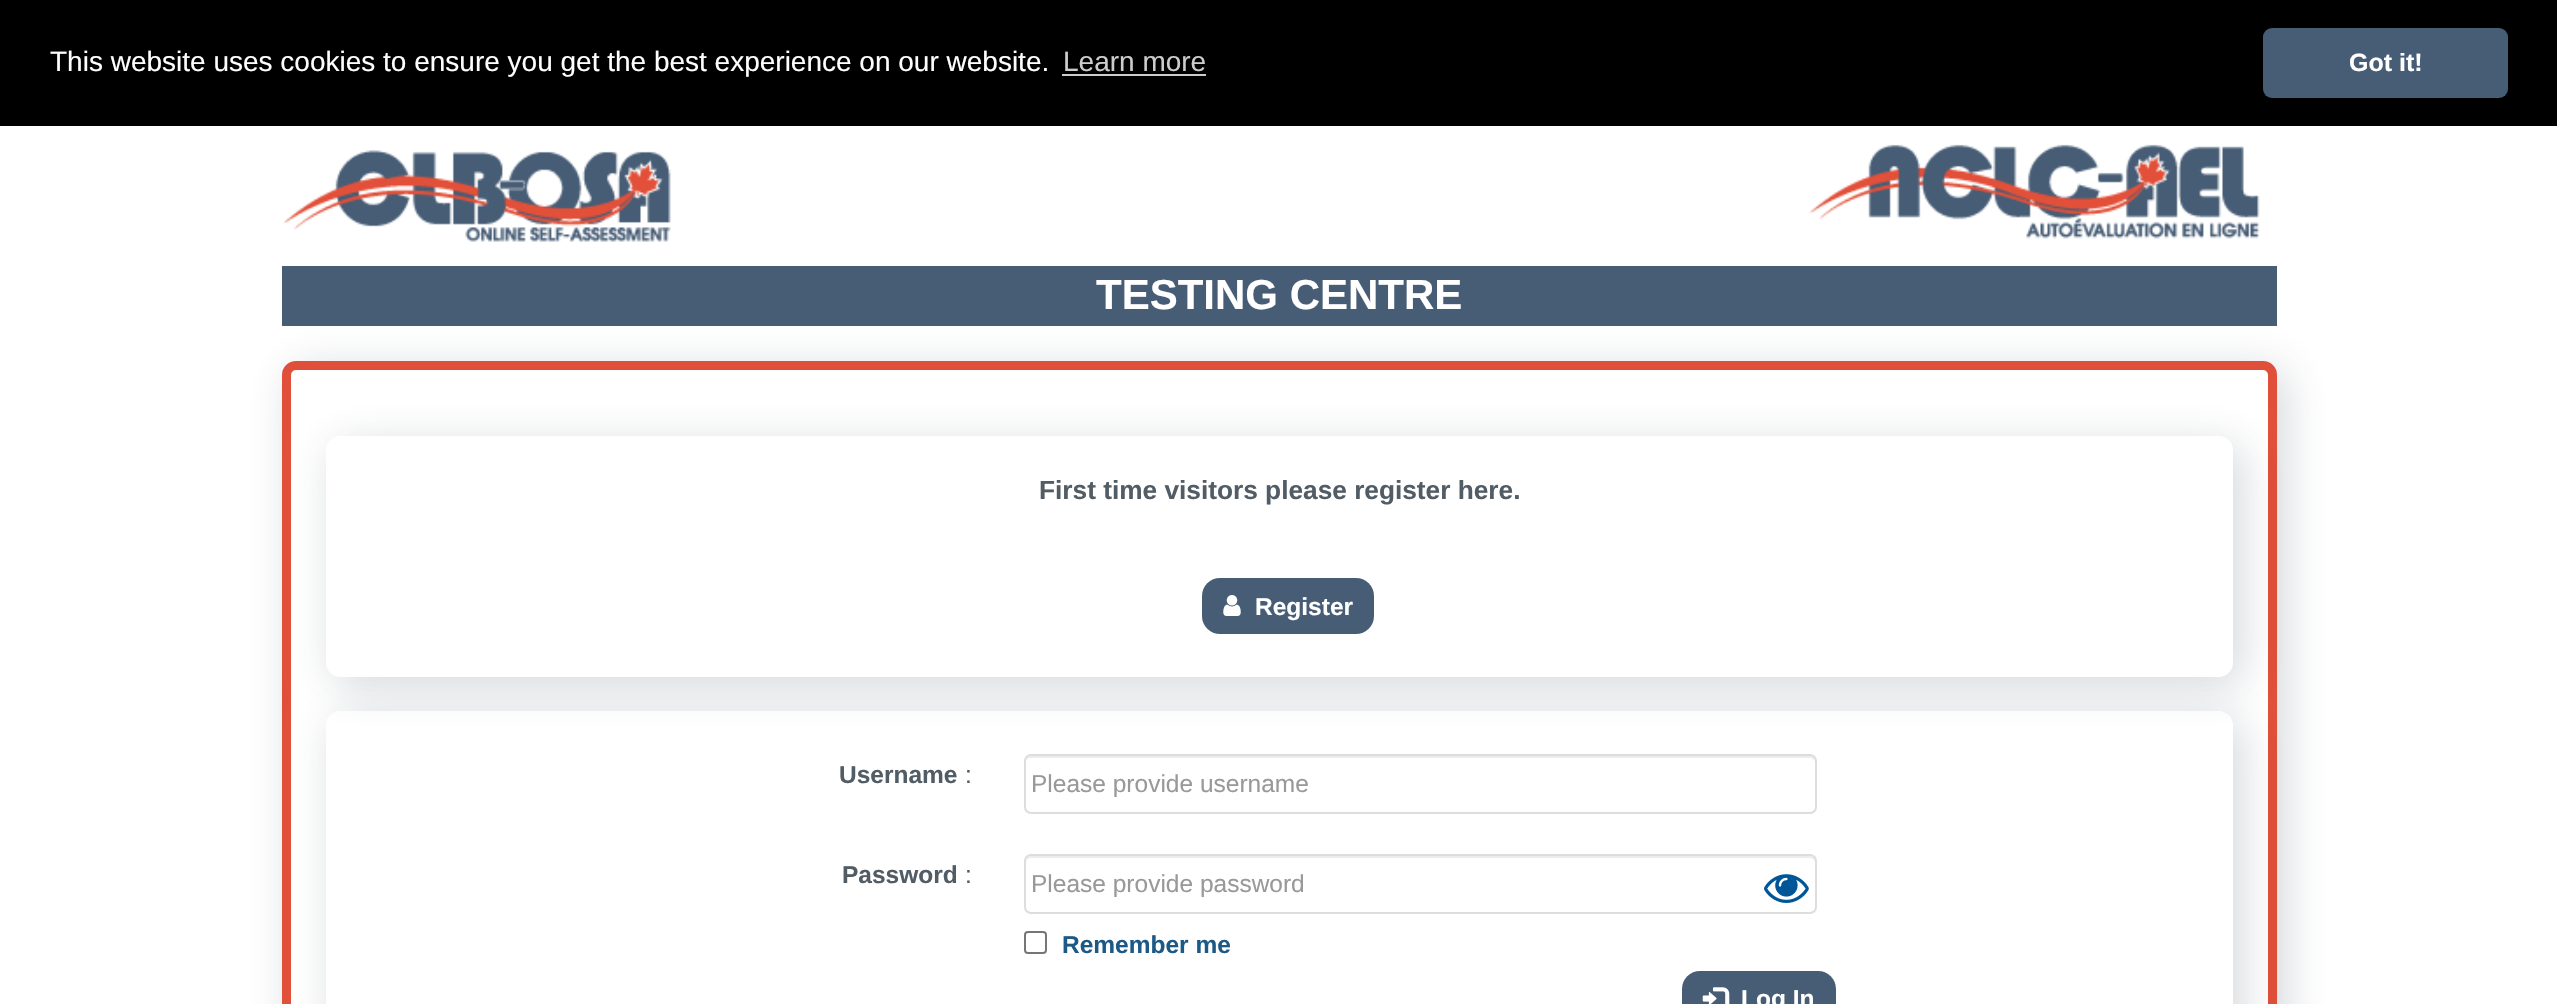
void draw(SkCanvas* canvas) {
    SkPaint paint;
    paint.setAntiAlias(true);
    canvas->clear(0xFFFFFFFF);
    paint.setColor(0xFF000000);
    canvas->drawRect(SkRect::MakeXYWH(0, 0, 2557, 126), paint);
    SkFont font1(fontMgr->matchFamilyStyle("Liberation Sans", SkFontStyle::Normal()), 28);
    font1.setSubpixel(true);
    paint.setColor(0xFFFFFFFF);
    canvas->drawString("This website uses cookies to ensure you get the best experience on our website.", 50, 71, font1, paint);
    paint.setColor(0xFFCCCCCC);
    canvas->drawString("Learn more", 1063, 71, font1, paint);
    canvas->drawRect(SkRect::MakeXYWH(1062, 74, 144, 2), paint);
    paint.setColor(0xFF475D76);
    canvas->drawRoundRect(SkRect::MakeXYWH(2263, 28, 245, 70), 9, 9, paint);
    SkFont font2(fontMgr->matchFamilyStyle("Liberation Sans", SkFontStyle::Bold()), 25);
    font2.setSubpixel(true);
    paint.setColor(0xFFFFFFFF);
    canvas->drawString("Got it!", 2349, 71, font2, paint);
    canvas->drawImageRect(SkImages::DeferredFromEncodedData(SkData::MakeFromFileName("img1.png")), SkRect::MakeXYWH(283, 150, 388, 92), SkSamplingOptions());
    canvas->drawImageRect(SkImages::DeferredFromEncodedData(SkData::MakeFromFileName("img2.png")), SkRect::MakeXYWH(1809, 144, 451, 95), SkSamplingOptions());
    canvas->save();
    canvas->clipPath(SkPathBuilder(SkPathFillType::kEvenOdd).moveTo(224, 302).lineTo(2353, 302).lineTo(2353, 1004).lineTo(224, 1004).close().moveTo(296, 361).lineTo(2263, 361).cubicTo(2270.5f, 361, 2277, 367.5f, 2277, 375).lineTo(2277, 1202).cubicTo(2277, 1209.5f, 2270.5f, 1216, 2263, 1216).lineTo(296, 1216).cubicTo(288.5f, 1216, 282, 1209.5f, 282, 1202).lineTo(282, 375).cubicTo(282, 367.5f, 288.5f, 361, 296, 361).close().detach(), true);
    paint.setColor(0x332E3D49);
    paint.setMaskFilter(SkMaskFilter::MakeBlur(kNormal_SkBlurStyle, 22));
    canvas->drawRoundRect(SkRect::MakeXYWH(291, 369, 1995, 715), 14, 14, paint);
    paint.setMaskFilter(nullptr);
    canvas->restore();
    paint.setColor(0xFF475D76);
    canvas->drawRect(SkRect::MakeXYWH(282, 266, 1995, 60), paint);
    SkFont font3(fontMgr->matchFamilyStyle("Liberation Sans", SkFontStyle::Bold()), 42);
    font3.setSubpixel(true);
    paint.setColor(0xFFFFFFFF);
    canvas->drawString("TESTING CENTRE", 1096, 309, font3, paint);
    paint.setStyle(SkPaint::kStroke_Style);
    paint.setStrokeWidth(9);
    paint.setColor(0xFFE04F39);
    canvas->drawRoundRect(SkRect::MakeXYWH(286.5f, 365.5f, 1986, 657), 9.5f, 9.5f, paint);
    canvas->save();
    canvas->clipPath(SkPathBuilder(SkPathFillType::kEvenOdd).moveTo(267, 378).lineTo(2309, 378).lineTo(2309, 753).lineTo(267, 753).close().moveTo(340, 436).lineTo(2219, 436).cubicTo(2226.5f, 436, 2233, 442.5f, 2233, 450).lineTo(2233, 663).cubicTo(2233, 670.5f, 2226.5f, 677, 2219, 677).lineTo(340, 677).cubicTo(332.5f, 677, 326, 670.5f, 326, 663).lineTo(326, 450).cubicTo(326, 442.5f, 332.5f, 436, 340, 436).close().detach(), true);
    paint.setStyle(SkPaint::kFill_Style);
    paint.setColor(0x332E3D49);
    paint.setMaskFilter(SkMaskFilter::MakeBlur(kNormal_SkBlurStyle, 22));
    canvas->drawRoundRect(SkRect::MakeXYWH(334, 445, 1908, 241), 14, 14, paint);
    paint.setMaskFilter(nullptr);
    canvas->restore();
    SkFont font4(fontMgr->matchFamilyStyle("Liberation Sans", SkFontStyle::Bold()), 26.25f);
    font4.setSubpixel(true);
    paint.setColor(0xFF525C65);
    canvas->drawString("First time visitors please register here.", 1039, 499, font4, paint);
    paint.setColor(0xFF475D76);
    canvas->drawRoundRect(SkRect::MakeXYWH(1202, 578, 172, 56), 18, 18, paint);
    canvas->drawImageRect(SkImages::DeferredFromEncodedData(SkData::MakeFromFileName("img3.png")), SkRect::MakeXYWH(1223, 595, 18, 21), SkSamplingOptions());
    SkFont font5(fontMgr->matchFamilyStyle("Liberation Sans", SkFontStyle::Bold()), 24.5f);
    font5.setSubpixel(true);
    paint.setColor(0xFFFFFFFF);
    canvas->drawString("Register", 1255, 615, font5, paint);
    canvas->save();
    canvas->clipPath(SkPathBuilder(SkPathFillType::kEvenOdd).moveTo(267, 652).lineTo(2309, 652).lineTo(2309, 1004).lineTo(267, 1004).close().moveTo(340, 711).lineTo(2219, 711).cubicTo(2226.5f, 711, 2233, 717.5f, 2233, 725).lineTo(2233, 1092).cubicTo(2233, 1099.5f, 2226.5f, 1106, 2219, 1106).lineTo(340, 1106).cubicTo(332.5f, 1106, 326, 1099.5f, 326, 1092).lineTo(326, 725).cubicTo(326, 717.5f, 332.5f, 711, 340, 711).close().detach(), true);
    paint.setColor(0x332E3D49);
    paint.setMaskFilter(SkMaskFilter::MakeBlur(kNormal_SkBlurStyle, 22));
    canvas->drawRoundRect(SkRect::MakeXYWH(334, 719, 1908, 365), 14, 14, paint);
    paint.setMaskFilter(nullptr);
    canvas->restore();
    paint.setColor(0xFF525C65);
    canvas->drawString("Username", 839, 783, font5, paint);
    SkFont font6(fontMgr->matchFamilyStyle("Liberation Sans", SkFontStyle::Normal()), 24.5f);
    font6.setSubpixel(true);
    canvas->drawString(":", 965, 783, font6, paint);
    paint.setColor(0xFFECECEC);
    canvas->drawPath(SkPathBuilder().moveTo(1031, 758).lineTo(1810, 758).cubicTo(1812, 758, 1815, 760, 1815, 763).cubicTo(1815, 760, 1814, 756, 1810, 756).lineTo(1031, 756).cubicTo(1027, 756, 1026, 760, 1026, 763).cubicTo(1026, 760, 1028, 758, 1031, 758).close().detach(), paint);
    paint.setStyle(SkPaint::kStroke_Style);
    paint.setStrokeWidth(2);
    paint.setColor(0xFFDDDDDD);
    canvas->drawRoundRect(SkRect::MakeXYWH(1025, 755, 791, 58), 6, 6, paint);
    paint.setStyle(SkPaint::kFill_Style);
    paint.setColor(0xFF999999);
    canvas->drawString("Please provide username", 1031, 792, font6, paint);
    paint.setColor(0xFF525C65);
    canvas->drawString("Password", 842, 883, font5, paint);
    canvas->drawString(":", 965, 883, font6, paint);
    paint.setColor(0xFFECECEC);
    canvas->drawPath(SkPathBuilder().moveTo(1031, 858).lineTo(1810, 858).cubicTo(1812, 858, 1815, 860, 1815, 863).cubicTo(1815, 860, 1814, 856, 1810, 856).lineTo(1031, 856).cubicTo(1027, 856, 1026, 860, 1026, 863).cubicTo(1026, 860, 1028, 858, 1031, 858).close().detach(), paint);
    paint.setStyle(SkPaint::kStroke_Style);
    paint.setColor(0xFFDDDDDD);
    canvas->drawRoundRect(SkRect::MakeXYWH(1025, 855, 791, 58), 6, 6, paint);
    paint.setStyle(SkPaint::kFill_Style);
    paint.setColor(0xFF999999);
    canvas->drawString("Please provide password", 1031, 892, font6, paint);
    canvas->drawImageRect(SkImages::DeferredFromEncodedData(SkData::MakeFromFileName("img4.png")), SkRect::MakeXYWH(1764, 874, 45, 29), SkSamplingOptions());
    paint.setStyle(SkPaint::kStroke_Style);
    paint.setColor(0xFF767676);
    canvas->drawRoundRect(SkRect::MakeXYWH(1025, 932, 21, 21), 3, 3, paint);
    paint.setStyle(SkPaint::kFill_Style);
    paint.setColor(0xFF1D5987);
    canvas->drawString("Remember me", 1062, 953, font5, paint);
    paint.setColor(0xFF475D76);
    canvas->drawRoundRect(SkRect::MakeXYWH(1682, 971, 154, 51), 18, 18, paint);
    canvas->drawImageRect(SkImages::DeferredFromEncodedData(SkData::MakeFromFileName("img5.png")), SkRect::MakeXYWH(1702, 987, 28, 17), SkSamplingOptions());
    paint.setColor(0xFFFFFFFF);
    canvas->drawString("Log In", 1741, 1007, font5, paint);
}
